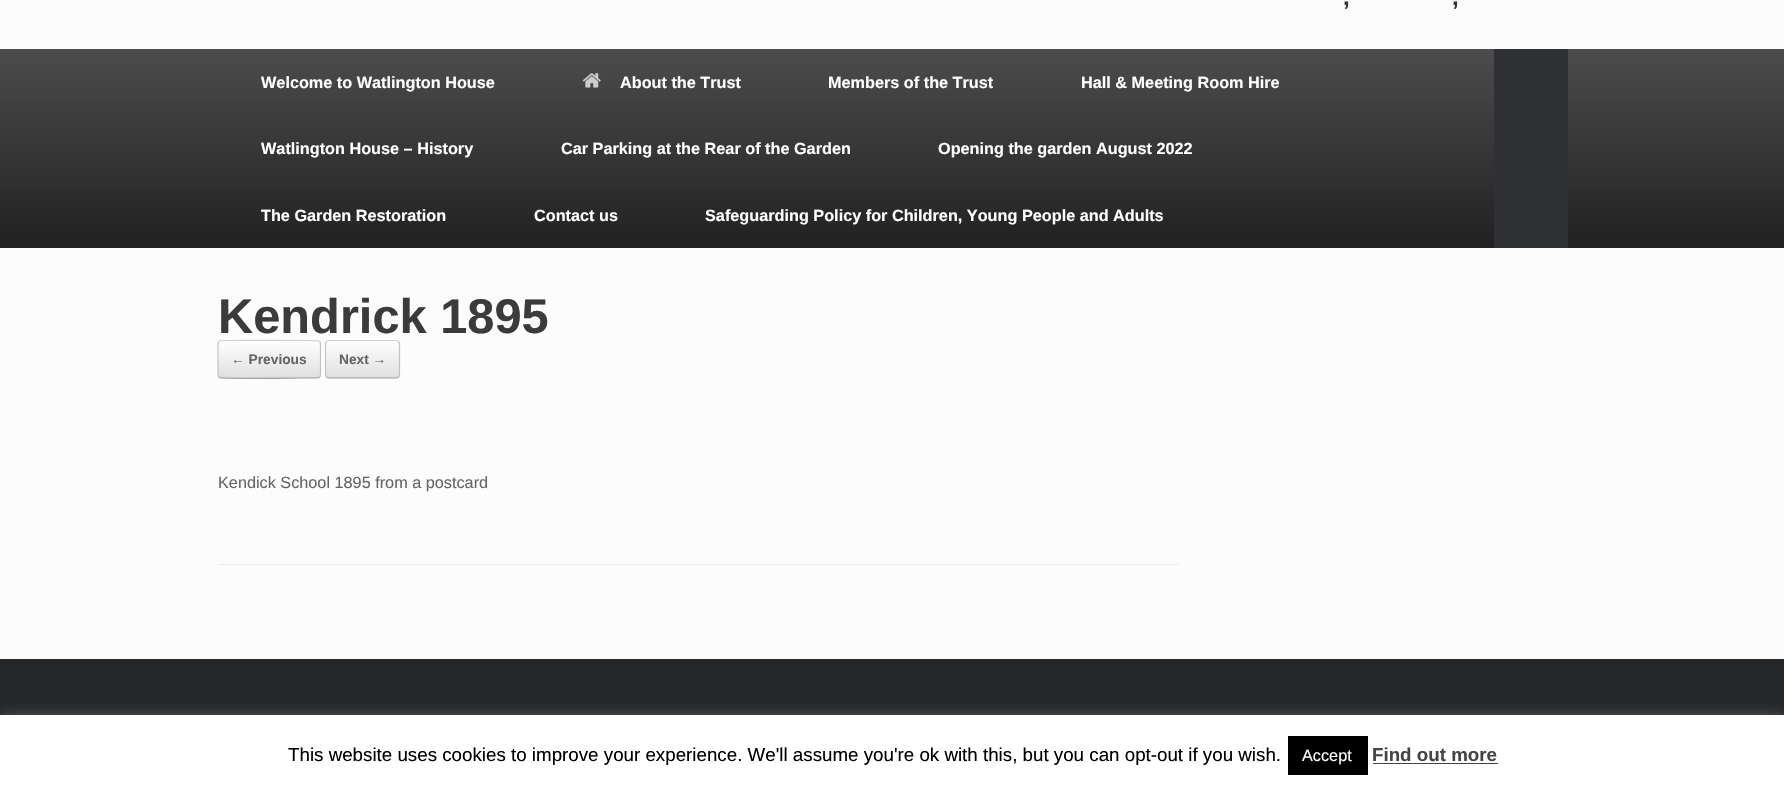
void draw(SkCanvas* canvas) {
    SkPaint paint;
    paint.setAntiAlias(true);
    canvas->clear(0xFFFCFCFC);
    SkFont font1(fontMgr->matchFamilyStyle("Liberation Sans", SkFontStyle::Bold()), 24);
    font1.setSubpixel(true);
    paint.setColor(0xFF333333);
    canvas->drawString(",", 1343, 5, font1, paint);
    canvas->drawString(",", 1452, 5, font1, paint);
    {
        const SkColor colors[] = {0xFF4C4C4C, 0xFF212121};
        const float stops[] = {0, 1};
        const SkPoint ends[] = {{893, 49}, {893, 248}};
        paint.setShader(SkGradientShader::MakeLinear(ends, colors, stops, 2, SkTileMode::kClamp));
        paint.setAlpha(255);
    }
    canvas->drawRect(SkRect::MakeXYWH(0, 49, 1784, 199), paint);
    SkFont font2(fontMgr->matchFamilyStyle("Liberation Sans", SkFontStyle::Bold()), 16.25f);
    font2.setSubpixel(true);
    paint.setShader(nullptr);
    paint.setColor(0xFFFFFFFF);
    canvas->drawString("Welcome to Watlington House", 261, 88, font2, paint);
    canvas->drawImageRect(SkImages::DeferredFromEncodedData(SkData::MakeFromFileName("img1.png")), SkRect::MakeXYWH(582, 73, 19, 15), SkSamplingOptions());
    canvas->drawString("About the Trust", 620, 88, font2, paint);
    canvas->drawString("Members of the Trust", 828, 88, font2, paint);
    canvas->drawString("Hall & Meeting Room Hire", 1081, 88, font2, paint);
    canvas->drawString("Watlington House – History", 261, 154, font2, paint);
    canvas->drawString("Car Parking at the Rear of the Garden", 561, 154, font2, paint);
    canvas->drawString("Opening the garden August 2022", 938, 154, font2, paint);
    canvas->drawString("The Garden Restoration", 261, 221, font2, paint);
    canvas->drawString("Contact us", 534, 221, font2, paint);
    canvas->drawString("Safeguarding Policy for Children, Young People and Adults", 705, 221, font2, paint);
    paint.setColor(0xFF303134);
    canvas->drawRect(SkRect::MakeXYWH(1494, 49, 74, 199), paint);
    paint.setColor(0xFFEEEEEE);
    canvas->drawRect(SkRect::MakeXYWH(218, 564, 962, 1), paint);
    SkFont font3(fontMgr->matchFamilyStyle("Liberation Sans", SkFontStyle::Bold()), 48.75f);
    font3.setSubpixel(true);
    paint.setColor(0xFF3B3B3B);
    canvas->drawString("Kendrick 1895", 218, 333, font3, paint);
    canvas->save();
    canvas->clipPath(SkPathBuilder().moveTo(222, 340).lineTo(317, 340).cubicTo(319, 340, 321, 342, 321, 344).lineTo(321, 375).cubicTo(321, 377, 319, 379, 317, 379).lineTo(222, 379).cubicTo(220, 379, 218, 377, 218, 375).lineTo(218, 344).cubicTo(218, 342, 220, 340, 222, 340).close().detach(), true);
    {
        const SkColor colors[] = {0xFFDFDFDF, 0xFFFFFFFF};
        const float stops[] = {0, 1};
        const SkPoint ends[] = {{219, 341}, {219, 305}};
        paint.setShader(SkGradientShader::MakeLinear(ends, colors, stops, 2, SkTileMode::kClamp));
        paint.setAlpha(255);
    }
    canvas->drawRect(SkRect::MakeXYWH(218, 340, 103, 1), paint);
    {
        const SkColor colors[] = {0xFFDFDFDF, 0xFFFFFFFF};
        const float stops[] = {0, 1};
        const SkPoint ends[] = {{219, 378}, {219, 341}};
        paint.setShader(SkGradientShader::MakeLinear(ends, colors, stops, 2, SkTileMode::kClamp));
        paint.setAlpha(255);
    }
    canvas->drawRect(SkRect::MakeXYWH(218, 341, 103, 37), paint);
    {
        const SkColor colors[] = {0xFFDFDFDF, 0xFFFFFFFF};
        const float stops[] = {0, 1};
        const SkPoint ends[] = {{219, 414}, {219, 378}};
        paint.setShader(SkGradientShader::MakeLinear(ends, colors, stops, 2, SkTileMode::kClamp));
        paint.setAlpha(255);
    }
    canvas->drawRect(SkRect::MakeXYWH(218, 378, 103, 1), paint);
    canvas->restore();
    paint.setStyle(SkPaint::kStroke_Style);
    paint.setStrokeWidth(1.2f);
    paint.setShader(nullptr);
    paint.setColor(0xFFD2D2D2);
    canvas->drawPath(SkPathBuilder().moveTo(219, 341.5f).lineTo(221, 340.5f).lineTo(237.5f, 340.5f).cubicTo(246, 340.5f, 317.5f, 339.5f, 319.5f, 341.5f).detach(), paint);
    paint.setColor(0xFFC3C3C3);
    canvas->drawPath(SkPathBuilder().moveTo(319.5f, 341.5f).cubicTo(320.5f, 342, 320.5f, 343, 320.5f, 344).lineTo(320.5f, 375).cubicTo(320.5f, 376, 320.5f, 376.5f, 319.5f, 377).detach(), paint);
    paint.setColor(0xFF9F9F9F);
    canvas->drawPath(SkPathBuilder().moveTo(319.5f, 377).lineTo(317.5f, 378).lineTo(301.5f, 378).cubicTo(292.5f, 378, 221.5f, 379, 219.5f, 377.5f).lineTo(219, 377).detach(), paint);
    paint.setColor(0xFFC3C3C3);
    canvas->drawPath(SkPathBuilder().moveTo(219, 377).cubicTo(218.5f, 376.5f, 218, 376, 218, 375).lineTo(218, 344).cubicTo(218, 343, 218.5f, 342, 219, 341.5f).detach(), paint);
    SkFont font4(fontMgr->matchFamilyStyle("Liberation Sans", SkFontStyle::Bold()), 13.75f);
    font4.setSubpixel(true);
    paint.setStyle(SkPaint::kFill_Style);
    paint.setColor(0xFF646464);
    canvas->drawString("← Previous", 231, 364, font4, paint);
    canvas->save();
    canvas->clipPath(SkPathBuilder().moveTo(329, 340).lineTo(396, 340).cubicTo(398, 340, 400, 342, 400, 344).lineTo(400, 375).cubicTo(400, 377, 398, 379, 396, 379).lineTo(329, 379).cubicTo(327, 379, 325, 377, 325, 375).lineTo(325, 344).cubicTo(325, 342, 327, 340, 329, 340).close().detach(), true);
    {
        const SkColor colors[] = {0xFFDFDFDF, 0xFFFFFFFF};
        const float stops[] = {0, 1};
        const SkPoint ends[] = {{326, 378}, {326, 341}};
        paint.setShader(SkGradientShader::MakeLinear(ends, colors, stops, 2, SkTileMode::kClamp));
        paint.setAlpha(255);
    }
    canvas->drawRect(SkRect::MakeXYWH(325, 341, 75, 37), paint);
    {
        const SkColor colors[] = {0xFFDFDFDF, 0xFFFFFFFF};
        const float stops[] = {0, 1};
        const SkPoint ends[] = {{326, 414}, {326, 378}};
        paint.setShader(SkGradientShader::MakeLinear(ends, colors, stops, 2, SkTileMode::kClamp));
        paint.setAlpha(255);
    }
    canvas->drawRect(SkRect::MakeXYWH(325, 378, 75, 1), paint);
    canvas->restore();
    paint.setStyle(SkPaint::kStroke_Style);
    paint.setShader(nullptr);
    paint.setColor(0xFFD2D2D2);
    canvas->drawPath(SkPathBuilder().moveTo(326.5f, 341.5f).lineTo(328.5f, 340.5f).lineTo(396.5f, 340.5f).lineTo(398.5f, 341.5f).detach(), paint);
    paint.setColor(0xFFC3C3C3);
    canvas->drawPath(SkPathBuilder().moveTo(398.5f, 341.5f).cubicTo(399, 342, 399.5f, 343, 399.5f, 344).lineTo(399.5f, 375).cubicTo(399.5f, 376, 399, 376.5f, 398.5f, 377).detach(), paint);
    paint.setColor(0xFF9F9F9F);
    canvas->drawPath(SkPathBuilder().moveTo(398.5f, 377).lineTo(396.5f, 378).lineTo(328.5f, 378).lineTo(326.5f, 377).detach(), paint);
    paint.setColor(0xFFC3C3C3);
    canvas->drawPath(SkPathBuilder().moveTo(326.5f, 377).cubicTo(326, 376.5f, 325.5f, 376, 325.5f, 375).lineTo(325.5f, 344).cubicTo(325.5f, 343, 326, 342, 326.5f, 341.5f).detach(), paint);
    paint.setStyle(SkPaint::kFill_Style);
    paint.setColor(0xFF646464);
    canvas->drawString("Next →", 339, 364, font4, paint);
    SkFont font5(fontMgr->matchFamilyStyle("Liberation Sans", SkFontStyle::Normal()), 16.25f);
    font5.setSubpixel(true);
    canvas->drawString("Kendick School 1895 from a postcard", 218, 488, font5, paint);
    paint.setColor(0xFF252628);
    canvas->drawRect(SkRect::MakeXYWH(0, 659, 1784, 56), paint);
    paint.setColor(0x4DACABAB);
    paint.setMaskFilter(SkMaskFilter::MakeBlur(kNormal_SkBlurStyle, 6));
    canvas->drawRect(SkRect::MakeXYWH(0, 714, 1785, 75), paint);
    paint.setMaskFilter(nullptr);
    paint.setColor(0xFFFFFFFF);
    canvas->drawRect(SkRect::MakeXYWH(0, 715, 1784, 75), paint);
    SkFont font6(fontMgr->matchFamilyStyle("Liberation Sans", SkFontStyle::Normal()), 18.75f);
    font6.setSubpixel(true);
    paint.setColor(0xFF000000);
    canvas->drawString("This website uses cookies to improve your experience. We'll assume you're ok with this, but you can opt-out if you wish.", 288, 761, font6, paint);
    canvas->drawRect(SkRect::MakeXYWH(1288, 736, 80, 39), paint);
    paint.setColor(0xFFFFFFFF);
    canvas->drawString("Accept", 1302, 761, font5, paint);
    SkFont font7(fontMgr->matchFamilyStyle("Liberation Sans", SkFontStyle::Bold()), 18.75f);
    font7.setSubpixel(true);
    paint.setColor(0xFF444444);
    canvas->drawString("Find out more", 1372, 761, font7, paint);
    canvas->drawRect(SkRect::MakeXYWH(1373, 763, 125, 1), paint);
}
